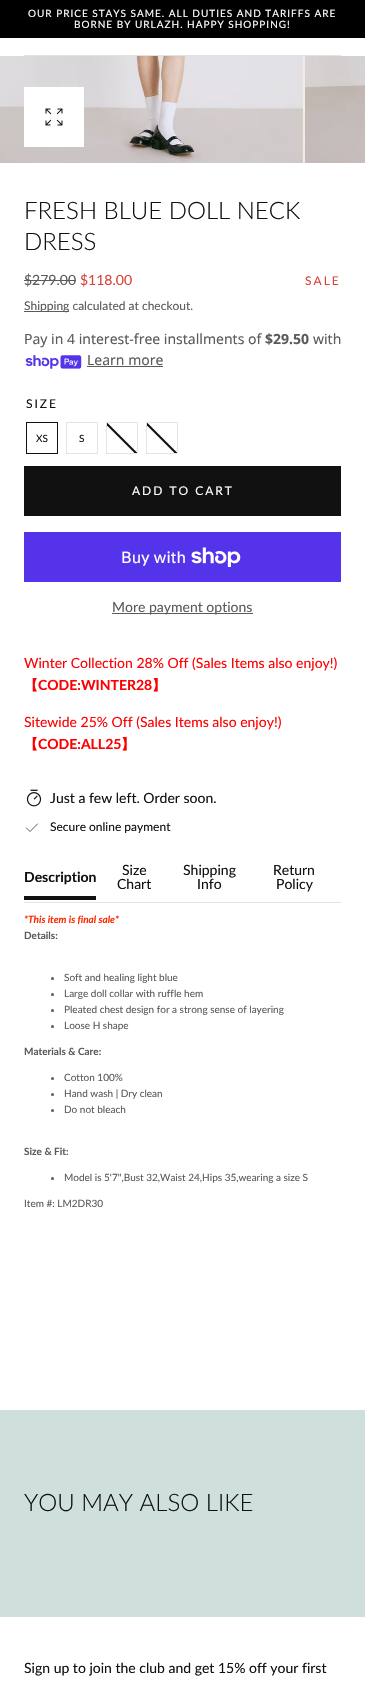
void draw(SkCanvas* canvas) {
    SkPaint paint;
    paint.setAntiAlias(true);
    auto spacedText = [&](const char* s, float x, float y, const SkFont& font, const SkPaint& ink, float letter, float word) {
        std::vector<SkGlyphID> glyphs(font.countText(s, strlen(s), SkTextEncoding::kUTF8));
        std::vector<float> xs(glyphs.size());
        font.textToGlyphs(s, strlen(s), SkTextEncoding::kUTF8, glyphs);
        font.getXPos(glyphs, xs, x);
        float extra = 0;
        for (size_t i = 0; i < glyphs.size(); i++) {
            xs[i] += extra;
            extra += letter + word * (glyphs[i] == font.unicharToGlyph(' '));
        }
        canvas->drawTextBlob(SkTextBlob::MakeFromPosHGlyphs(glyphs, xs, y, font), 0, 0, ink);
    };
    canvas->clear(0xFFFFFFFF);
    paint.setColor(0xFF000000);
    canvas->drawRect(SkRect::MakeXYWH(0, 0, 365, 38), paint);
    SkFont font1(fontMgr->matchFamilyStyle("Lato", SkFontStyle::Normal()), 10);
    font1.setSubpixel(true);
    paint.setColor(0xFFFFFFFF);
    spacedText("OUR PRICE STAYS SAME. ALL DUTIES AND TARIFFS ARE", 28, 17, font1, paint, 1, 0);
    spacedText("BORNE BY URLAZH. HAPPY SHOPPING!", 74, 28, font1, paint, 1, 0);
    paint.setColor(0xFFE6E2E1);
    canvas->drawRect(SkRect::MakeXYWH(24, 55, 317, 1), paint);
    paint.setColor(0xFFF5EBDF);
    canvas->drawRect(SkRect::MakeXYWH(302, 56, 3, 107), paint);
    canvas->drawImageRect(SkImages::DeferredFromEncodedData(SkData::MakeFromFileName("img1.png")), SkRect::MakeXYWH(0, 56, 303, 107), SkSamplingOptions());
    canvas->drawImageRect(SkImages::DeferredFromEncodedData(SkData::MakeFromFileName("img2.png")), SkRect::MakeXYWH(305, 56, 60, 107), SkSamplingOptions());
    paint.setColor(0xFFFFFFFF);
    canvas->drawRect(SkRect::MakeXYWH(24, 87, 60, 60), paint);
    canvas->drawImageRect(SkImages::DeferredFromEncodedData(SkData::MakeFromFileName("img3.png")), SkRect::MakeXYWH(45, 108, 18, 18), SkSamplingOptions());
    SkFont font2(fontMgr->matchFamilyStyle("Lato", SkFontStyle(300, SkFontStyle::kNormal_Width, SkFontStyle::kUpright_Slant)), 24);
    font2.setSubpixel(true);
    paint.setColor(0xFF111111);
    canvas->drawString("FRESH BLUE DOLL NECK", 24, 219, font2, paint);
    canvas->drawString("DRESS", 24, 250, font2, paint);
    SkFont font3(fontMgr->matchFamilyStyle("Lato", SkFontStyle::Normal()), 14);
    font3.setSubpixel(true);
    paint.setColor(0xFF5E5A59);
    canvas->drawString("$279.00", 24, 285, font3, paint);
    canvas->drawRect(SkRect::MakeXYWH(24, 280, 52, 1), paint);
    paint.setColor(0xFFD84339);
    canvas->drawString("$118.00", 80, 285, font3, paint);
    SkFont font4(fontMgr->matchFamilyStyle("Lato", SkFontStyle::Normal()), 12);
    font4.setSubpixel(true);
    spacedText("SALE", 305, 285, font4, paint, 2, 0);
    paint.setColor(0xFF5E5A59);
    canvas->drawRect(SkRect::MakeXYWH(24, 311, 45, 1), paint);
    canvas->drawString("Shipping calculated at checkout.", 24, 310, font4, paint);
    SkFont font5(fontMgr->matchFamilyStyle("Noto Sans", SkFontStyle::Normal()), 14);
    font5.setSubpixel(true);
    canvas->drawString("Pay in 4 interest-free installments of", 24, 344, font5, paint);
    SkFont font6(fontMgr->matchFamilyStyle("Noto Sans", SkFontStyle::Bold()), 14);
    font6.setSubpixel(true);
    canvas->drawString("$29.50", 265, 344, font6, paint);
    canvas->drawString("with", 313, 344, font5, paint);
    canvas->drawImageRect(SkImages::DeferredFromEncodedData(SkData::MakeFromFileName("img4.png")), SkRect::MakeXYWH(25, 355, 57, 14), SkSamplingOptions());
    canvas->drawString("Learn more", 87, 365, font5, paint);
    canvas->drawRect(SkRect::MakeXYWH(87, 366, 76, 1), paint);
    paint.setColor(0xFF111111);
    spacedText("SIZE", 26, 408, font4, paint, 2, 0);
    paint.setStyle(SkPaint::kStroke_Style);
    paint.setStrokeWidth(1);
    canvas->drawRect(SkRect::MakeXYWH(26.5f, 422.5f, 31, 31), paint);
    paint.setStyle(SkPaint::kFill_Style);
    canvas->drawString("XS", 36, 442, font1, paint);
    paint.setStyle(SkPaint::kStroke_Style);
    paint.setColor(0xFFE6E2E1);
    canvas->drawRect(SkRect::MakeXYWH(66.5f, 422.5f, 31, 31), paint);
    paint.setStyle(SkPaint::kFill_Style);
    paint.setColor(0xFF111111);
    canvas->drawString("S", 79, 442, font1, paint);
    paint.setStyle(SkPaint::kStroke_Style);
    paint.setColor(0xFFE6E2E1);
    canvas->drawRect(SkRect::MakeXYWH(106.5f, 422.5f, 31, 31), paint);
    canvas->save();
    canvas->clipRect(SkRect::MakeXYWH(107, 423, 30, 30));
    paint.setStyle(SkPaint::kFill_Style);
    paint.setColor(0xFF111111);
    canvas->drawPath(SkPathBuilder().moveTo(107, 422.5f).lineTo(139, 454.5f).lineTo(137.5f, 456).lineTo(105.5f, 424).close().detach(), paint);
    canvas->restore();
    paint.setStyle(SkPaint::kStroke_Style);
    paint.setColor(0xFFE6E2E1);
    canvas->drawRect(SkRect::MakeXYWH(146.5f, 422.5f, 31, 31), paint);
    canvas->save();
    canvas->clipRect(SkRect::MakeXYWH(147, 423, 30, 30));
    paint.setStyle(SkPaint::kFill_Style);
    paint.setColor(0xFF111111);
    canvas->drawPath(SkPathBuilder().moveTo(147, 422.5f).lineTo(179, 454.5f).lineTo(177.5f, 456).lineTo(145.5f, 424).close().detach(), paint);
    canvas->restore();
    canvas->drawRect(SkRect::MakeXYWH(24, 466, 317, 50), paint);
    paint.setColor(0xFFFFFFFF);
    spacedText("ADD TO CART", 132, 495, font4, paint, 2, 0);
    paint.setColor(0xFF5433EB);
    canvas->drawRect(SkRect::MakeXYWH(24, 532, 317, 50), paint);
    SkFont font7(fontMgr->matchFamilyStyle("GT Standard", SkFontStyle::Normal()), 16);
    font7.setSubpixel(true);
    paint.setColor(0xFFFFFFFF);
    canvas->drawString("Buy with", 121, 563, font7, paint);
    canvas->drawImageRect(SkImages::DeferredFromEncodedData(SkData::MakeFromFileName("img5.png")), SkRect::MakeXYWH(191, 547, 50, 20), SkSamplingOptions());
    paint.setColor(0xFF5E5A59);
    canvas->drawRect(SkRect::MakeXYWH(112, 613, 141, 1), paint);
    canvas->drawString("More payment options", 112, 612, font3, paint);
    paint.setColor(0xFFFF0000);
    canvas->drawString("Winter Collection 28% Off (Sales Items also enjoy!)", 24, 668, font3, paint);
    SkFont font8(fontMgr->matchFamilyStyle("WenQuanYi Zen Hei", SkFontStyle::Bold()), 14);
    font8.setSubpixel(true);
    canvas->drawString("【", 24, 690, font8, paint);
    SkFont font9(fontMgr->matchFamilyStyle("Lato", SkFontStyle::Bold()), 14);
    font9.setSubpixel(true);
    canvas->drawString("CODE:WINTER28", 38, 690, font9, paint);
    canvas->drawString("】", 152, 690, font8, paint);
    canvas->drawString("Sitewide 25% Off (Sales Items also enjoy!)", 24, 727, font3, paint);
    canvas->drawString("【", 24, 749, font8, paint);
    canvas->drawString("CODE:ALL25", 38, 749, font9, paint);
    canvas->drawString("】", 121, 749, font8, paint);
    canvas->drawImageRect(SkImages::DeferredFromEncodedData(SkData::MakeFromFileName("img6.png")), SkRect::MakeXYWH(26, 789, 16, 18), SkSamplingOptions());
    paint.setColor(0xFF111111);
    canvas->drawString("Just a few left. Order soon.", 50, 803, font3, paint);
    paint.setStyle(SkPaint::kStroke_Style);
    paint.setStrokeWidth(0.7f);
    paint.setStrokeCap(SkPaint::kSquare_Cap);
    canvas->drawPath(SkPathBuilder().moveTo(37.5f, 824).lineTo(30, 831.5f).lineTo(26.5f, 828).detach(), paint);
    paint.setStyle(SkPaint::kFill_Style);
    canvas->drawString("Secure online payment", 50, 831, font4, paint);
    paint.setColor(0xFFE6E2E1);
    canvas->drawRect(SkRect::MakeXYWH(24, 902, 317, 1), paint);
    paint.setColor(0xFF111111);
    canvas->drawRect(SkRect::MakeXYWH(24, 896, 72, 4), paint);
    canvas->drawString("Description", 24, 882, font9, paint);
    canvas->drawString("Size", 122, 875, font3, paint);
    canvas->drawString("Chart", 117, 889, font3, paint);
    canvas->drawString("Shipping", 183, 875, font3, paint);
    canvas->drawString("Info", 197, 889, font3, paint);
    canvas->drawString("Return", 273, 875, font3, paint);
    canvas->drawString("Policy", 276, 889, font3, paint);
    SkFont font10(fontMgr->matchFamilyStyle("Lato", SkFontStyle::BoldItalic()), 10);
    font10.setSubpixel(true);
    paint.setColor(0xFFFF2A00);
    canvas->drawString("*This item is final sale*", 24, 923, font10, paint);
    SkFont font11(fontMgr->matchFamilyStyle("Lato", SkFontStyle::Bold()), 10);
    font11.setSubpixel(true);
    paint.setColor(0xFF5E5A59);
    canvas->drawString("Details:", 24, 939, font11, paint);
    canvas->drawCircle(52.5f, 978.5f, 1.5f, paint);
    canvas->drawString("Soft and healing light blue", 64, 981, font1, paint);
    canvas->drawCircle(52.5f, 994.5f, 1.5f, paint);
    canvas->drawString("Large doll collar with ruffle hem", 64, 997, font1, paint);
    canvas->drawCircle(52.5f, 1010.5f, 1.5f, paint);
    canvas->drawString("Pleated chest design for a strong sense of layering", 64, 1013, font1, paint);
    canvas->drawCircle(52.5f, 1026.5f, 1.5f, paint);
    canvas->drawString("Loose H shape", 64, 1029, font1, paint);
    canvas->drawString("Materials & Care:", 24, 1055, font11, paint);
    canvas->drawCircle(52.5f, 1078.5f, 1.5f, paint);
    canvas->drawString("Cotton 100%", 64, 1081, font1, paint);
    canvas->drawCircle(52.5f, 1094.5f, 1.5f, paint);
    canvas->drawString("Hand wash | Dry clean", 64, 1097, font1, paint);
    canvas->drawCircle(52.5f, 1110.5f, 1.5f, paint);
    canvas->drawString("Do not bleach", 64, 1113, font1, paint);
    canvas->drawString("Size & Fit:", 24, 1155, font11, paint);
    canvas->drawCircle(52.5f, 1178.5f, 1.5f, paint);
    canvas->drawString("Model is 5'7\",Bust 32,Waist 24,Hips 35,wearing a size S", 64, 1181, font1, paint);
    canvas->drawString("Item #: LM2DR30", 24, 1207, font1, paint);
    paint.setColor(0xFFCEDFDC);
    canvas->drawRect(SkRect::MakeXYWH(0, 1410, 365, 207), paint);
    paint.setColor(0xFF111111);
    canvas->drawString("YOU MAY ALSO LIKE", 24, 1511, font2, paint);
    canvas->drawString("Sign up to join the club and get 15% off your first", 24, 1673, font3, paint);
}
